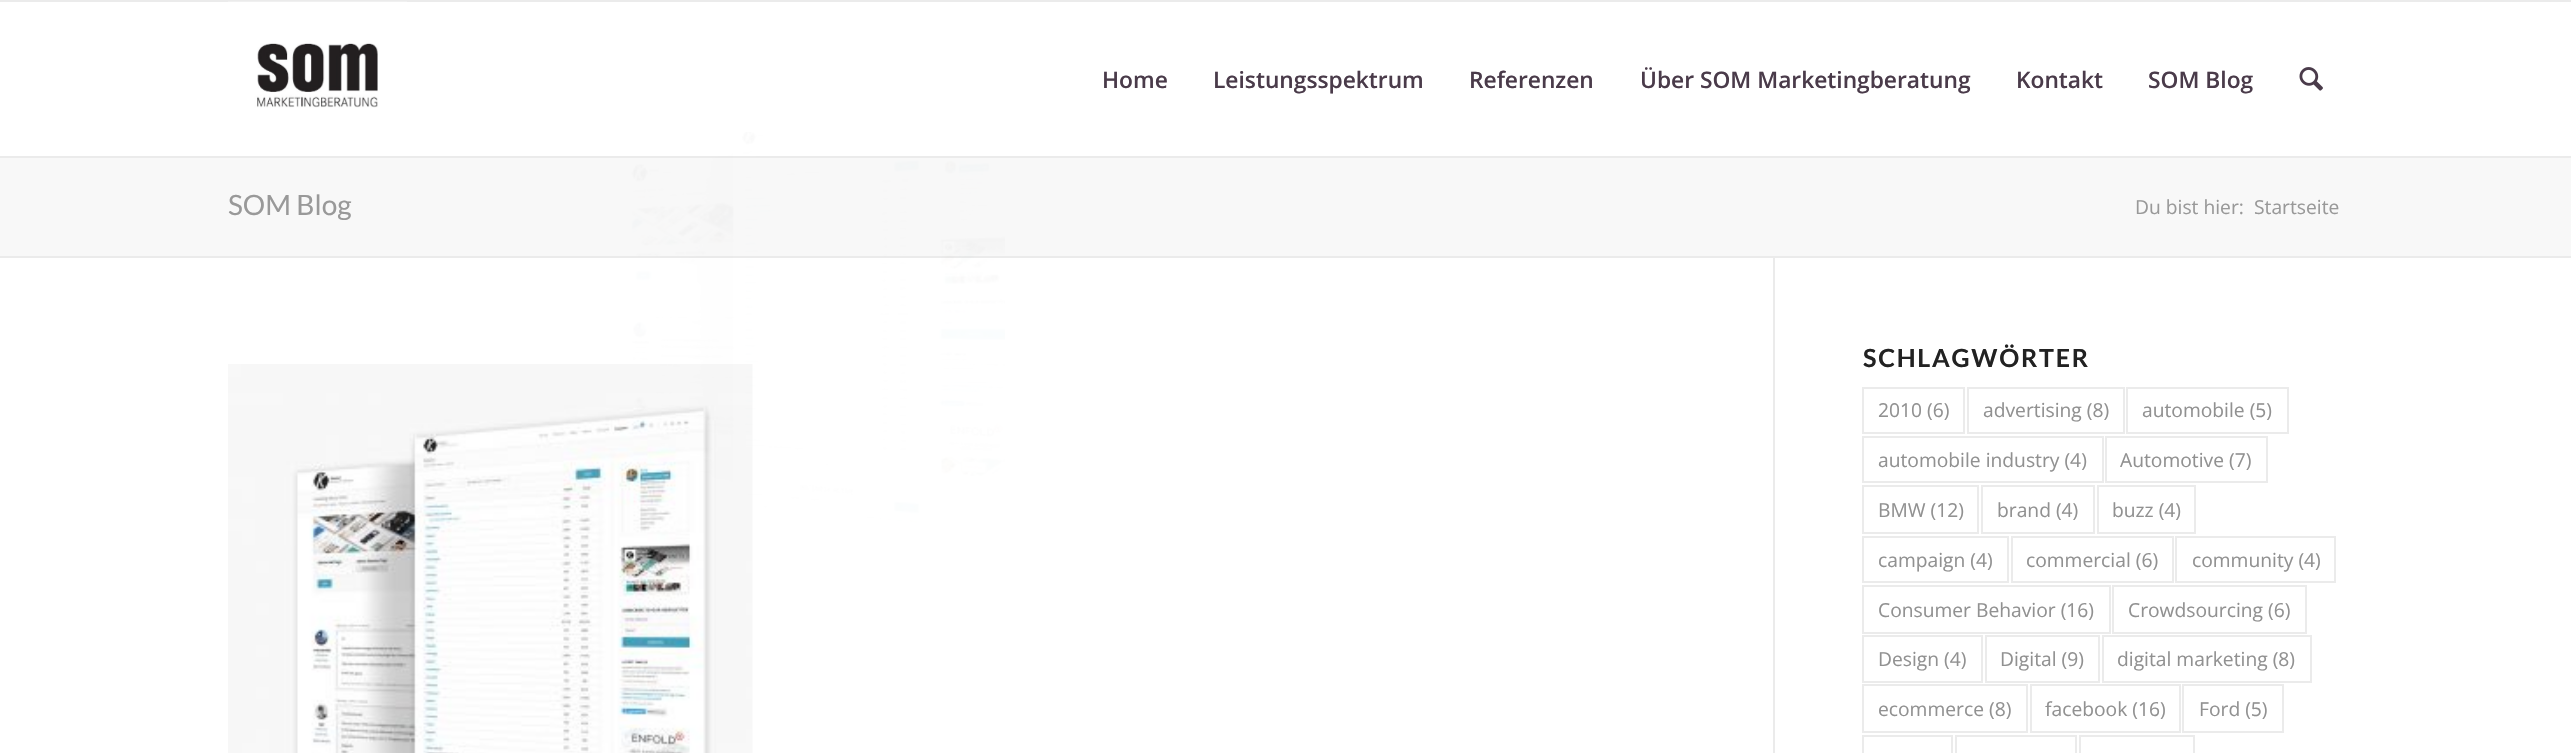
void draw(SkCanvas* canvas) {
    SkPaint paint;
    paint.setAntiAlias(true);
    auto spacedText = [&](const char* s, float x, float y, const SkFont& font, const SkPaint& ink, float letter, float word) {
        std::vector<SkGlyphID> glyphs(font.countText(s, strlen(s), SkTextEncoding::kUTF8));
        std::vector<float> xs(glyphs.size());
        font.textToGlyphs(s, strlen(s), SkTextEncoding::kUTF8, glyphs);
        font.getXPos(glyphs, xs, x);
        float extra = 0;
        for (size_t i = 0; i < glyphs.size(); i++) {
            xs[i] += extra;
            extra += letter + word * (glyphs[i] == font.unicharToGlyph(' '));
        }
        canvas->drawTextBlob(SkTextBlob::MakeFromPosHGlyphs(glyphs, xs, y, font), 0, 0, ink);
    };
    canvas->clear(0xFFFFFFFF);
    paint.setColor(0xFFEBEBEB);
    canvas->drawRect(SkRect::MakeXYWH(0, 0, 2571, 2), paint);
    canvas->drawRect(SkRect::MakeXYWH(0, 156, 2571, 2), paint);
    canvas->drawImageRect(SkImages::DeferredFromEncodedData(SkData::MakeFromFileName("img1.png")), SkRect::MakeXYWH(228, 1, 179, 107), SkSamplingOptions());
    SkFont font1(fontMgr->matchFamilyStyle("Open Sans", SkFontStyle(600, SkFontStyle::kNormal_Width, SkFontStyle::kUpright_Slant)), 22.75f);
    font1.setSubpixel(true);
    paint.setColor(0xFF4A3B4A);
    canvas->drawString("Home", 1102, 88, font1, paint);
    canvas->drawString("Leistungsspektrum", 1213, 88, font1, paint);
    canvas->drawString("Referenzen", 1469, 88, font1, paint);
    canvas->drawString("Über SOM Marketingberatung", 1640, 88, font1, paint);
    canvas->drawString("Kontakt", 2016, 88, font1, paint);
    canvas->drawString("SOM Blog", 2148, 88, font1, paint);
    canvas->drawImageRect(SkImages::DeferredFromEncodedData(SkData::MakeFromFileName("img2.png")), SkRect::MakeXYWH(2299, 67, 24, 24), SkSamplingOptions());
    paint.setColor(0xFFF8F8F8);
    canvas->drawRect(SkRect::MakeXYWH(0, 158, 2571, 98), paint);
    SkFont font2(fontMgr->matchFamilyStyle("Lato", SkFontStyle::Normal()), 28);
    font2.setSubpixel(true);
    paint.setColor(0xFF999999);
    canvas->drawString("SOM Blog", 228, 215, font2, paint);
    SkFont font3(fontMgr->matchFamilyStyle("Open Sans", SkFontStyle::Normal()), 19.25f);
    font3.setSubpixel(true);
    canvas->drawString("Du bist hier:", 2135, 214, font3, paint);
    canvas->drawString("Startseite", 2254, 214, font3, paint);
    paint.setColor(0xFFEBEBEB);
    canvas->drawRect(SkRect::MakeXYWH(0, 256, 2571, 2), paint);
    canvas->drawRect(SkRect::MakeXYWH(1773, 257, 2, 496), paint);
    canvas->drawImageRect(SkImages::DeferredFromEncodedData(SkData::MakeFromFileName("img3.png")), SkRect::MakeXYWH(228, 364, 525, 389), SkSamplingOptions());
    SkFont font4(fontMgr->matchFamilyStyle("Lato", SkFontStyle::Bold()), 25);
    font4.setSubpixel(true);
    paint.setColor(0xFF222222);
    spacedText("SCHLAGWÖRTER", 1863, 367, font4, paint, 1.75f, 0);
    paint.setStyle(SkPaint::kStroke_Style);
    paint.setStrokeWidth(2);
    paint.setColor(0xFFEBEBEB);
    canvas->drawRect(SkRect::MakeXYWH(1863, 388, 101, 45), paint);
    paint.setStyle(SkPaint::kFill_Style);
    paint.setColor(0xFF919191);
    canvas->drawString("2010 (6)", 1878, 417, font3, paint);
    paint.setStyle(SkPaint::kStroke_Style);
    paint.setColor(0xFFEBEBEB);
    canvas->drawRect(SkRect::MakeXYWH(1968, 388, 156, 45), paint);
    paint.setStyle(SkPaint::kFill_Style);
    paint.setColor(0xFF919191);
    canvas->drawString("advertising (8)", 1983, 417, font3, paint);
    paint.setStyle(SkPaint::kStroke_Style);
    paint.setColor(0xFFEBEBEB);
    canvas->drawRect(SkRect::MakeXYWH(2127, 388, 161, 45), paint);
    paint.setStyle(SkPaint::kFill_Style);
    paint.setColor(0xFF919191);
    canvas->drawString("automobile (5)", 2142, 417, font3, paint);
    paint.setStyle(SkPaint::kStroke_Style);
    paint.setColor(0xFFEBEBEB);
    canvas->drawRect(SkRect::MakeXYWH(1863, 437, 240, 45), paint);
    paint.setStyle(SkPaint::kFill_Style);
    paint.setColor(0xFF919191);
    canvas->drawString("automobile industry (4)", 1878, 467, font3, paint);
    paint.setStyle(SkPaint::kStroke_Style);
    paint.setColor(0xFFEBEBEB);
    canvas->drawRect(SkRect::MakeXYWH(2106, 437, 161, 45), paint);
    paint.setStyle(SkPaint::kFill_Style);
    paint.setColor(0xFF919191);
    canvas->drawString("Automotive (7)", 2120, 467, font3, paint);
    paint.setStyle(SkPaint::kStroke_Style);
    paint.setColor(0xFFEBEBEB);
    canvas->drawRect(SkRect::MakeXYWH(1863, 486, 115, 47), paint);
    paint.setStyle(SkPaint::kFill_Style);
    paint.setColor(0xFF919191);
    canvas->drawString("BMW (12)", 1878, 517, font3, paint);
    paint.setStyle(SkPaint::kStroke_Style);
    paint.setColor(0xFFEBEBEB);
    canvas->drawRect(SkRect::MakeXYWH(1982, 486, 112, 47), paint);
    paint.setStyle(SkPaint::kFill_Style);
    paint.setColor(0xFF919191);
    canvas->drawString("brand (4)", 1997, 517, font3, paint);
    paint.setStyle(SkPaint::kStroke_Style);
    paint.setColor(0xFFEBEBEB);
    canvas->drawRect(SkRect::MakeXYWH(2098, 486, 97, 47), paint);
    paint.setStyle(SkPaint::kFill_Style);
    paint.setColor(0xFF919191);
    canvas->drawString("buzz (4)", 2112, 517, font3, paint);
    paint.setStyle(SkPaint::kStroke_Style);
    paint.setColor(0xFFEBEBEB);
    canvas->drawRect(SkRect::MakeXYWH(1863, 537, 145, 45), paint);
    paint.setStyle(SkPaint::kFill_Style);
    paint.setColor(0xFF919191);
    canvas->drawString("campaign (4)", 1878, 567, font3, paint);
    paint.setStyle(SkPaint::kStroke_Style);
    paint.setColor(0xFFEBEBEB);
    canvas->drawRect(SkRect::MakeXYWH(2012, 537, 161, 45), paint);
    paint.setStyle(SkPaint::kFill_Style);
    paint.setColor(0xFF919191);
    canvas->drawString("commercial (6)", 2026, 567, font3, paint);
    paint.setStyle(SkPaint::kStroke_Style);
    paint.setColor(0xFFEBEBEB);
    canvas->drawRect(SkRect::MakeXYWH(2176, 537, 159, 45), paint);
    paint.setStyle(SkPaint::kFill_Style);
    paint.setColor(0xFF919191);
    canvas->drawString("community (4)", 2192, 567, font3, paint);
    paint.setStyle(SkPaint::kStroke_Style);
    paint.setColor(0xFFEBEBEB);
    canvas->drawRect(SkRect::MakeXYWH(1863, 586, 247, 47), paint);
    paint.setStyle(SkPaint::kFill_Style);
    paint.setColor(0xFF919191);
    canvas->drawString("Consumer Behavior (16)", 1878, 617, font3, paint);
    paint.setStyle(SkPaint::kStroke_Style);
    paint.setColor(0xFFEBEBEB);
    canvas->drawRect(SkRect::MakeXYWH(2113, 586, 193, 47), paint);
    paint.setStyle(SkPaint::kFill_Style);
    paint.setColor(0xFF919191);
    canvas->drawString("Crowdsourcing (6)", 2128, 617, font3, paint);
    paint.setStyle(SkPaint::kStroke_Style);
    paint.setColor(0xFFEBEBEB);
    canvas->drawRect(SkRect::MakeXYWH(1863, 636, 119, 46), paint);
    paint.setStyle(SkPaint::kFill_Style);
    paint.setColor(0xFF919191);
    canvas->drawString("Design (4)", 1878, 666, font3, paint);
    paint.setStyle(SkPaint::kStroke_Style);
    paint.setColor(0xFFEBEBEB);
    canvas->drawRect(SkRect::MakeXYWH(1986, 636, 113, 46), paint);
    paint.setStyle(SkPaint::kFill_Style);
    paint.setColor(0xFF919191);
    canvas->drawString("Digital (9)", 2000, 666, font3, paint);
    paint.setStyle(SkPaint::kStroke_Style);
    paint.setColor(0xFFEBEBEB);
    canvas->drawRect(SkRect::MakeXYWH(2103, 636, 208, 46), paint);
    paint.setStyle(SkPaint::kFill_Style);
    paint.setColor(0xFF919191);
    canvas->drawString("digital marketing (8)", 2117, 666, font3, paint);
    paint.setStyle(SkPaint::kStroke_Style);
    paint.setColor(0xFFEBEBEB);
    canvas->drawRect(SkRect::MakeXYWH(1863, 685, 164, 47), paint);
    paint.setStyle(SkPaint::kFill_Style);
    paint.setColor(0xFF919191);
    canvas->drawString("ecommerce (8)", 1878, 716, font3, paint);
    paint.setStyle(SkPaint::kStroke_Style);
    paint.setColor(0xFFEBEBEB);
    canvas->drawRect(SkRect::MakeXYWH(2031, 685, 149, 47), paint);
    paint.setStyle(SkPaint::kFill_Style);
    paint.setColor(0xFF919191);
    canvas->drawString("facebook (16)", 2045, 716, font3, paint);
    paint.setStyle(SkPaint::kStroke_Style);
    paint.setColor(0xFFEBEBEB);
    canvas->drawRect(SkRect::MakeXYWH(2183, 685, 100, 47), paint);
    paint.setStyle(SkPaint::kFill_Style);
    paint.setColor(0xFF919191);
    canvas->drawString("Ford (5)", 2199, 716, font3, paint);
    paint.setStyle(SkPaint::kStroke_Style);
    paint.setColor(0xFFEBEBEB);
    canvas->drawRect(SkRect::MakeXYWH(1863, 736, 89, 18), paint);
    canvas->drawRect(SkRect::MakeXYWH(1956, 736, 120, 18), paint);
    canvas->drawRect(SkRect::MakeXYWH(2080, 736, 114, 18), paint);
    canvas->drawImageRect(SkImages::DeferredFromEncodedData(SkData::MakeFromFileName("img4.png")), SkRect::MakeXYWH(579, 132, 426, 440), SkSamplingOptions());
}
